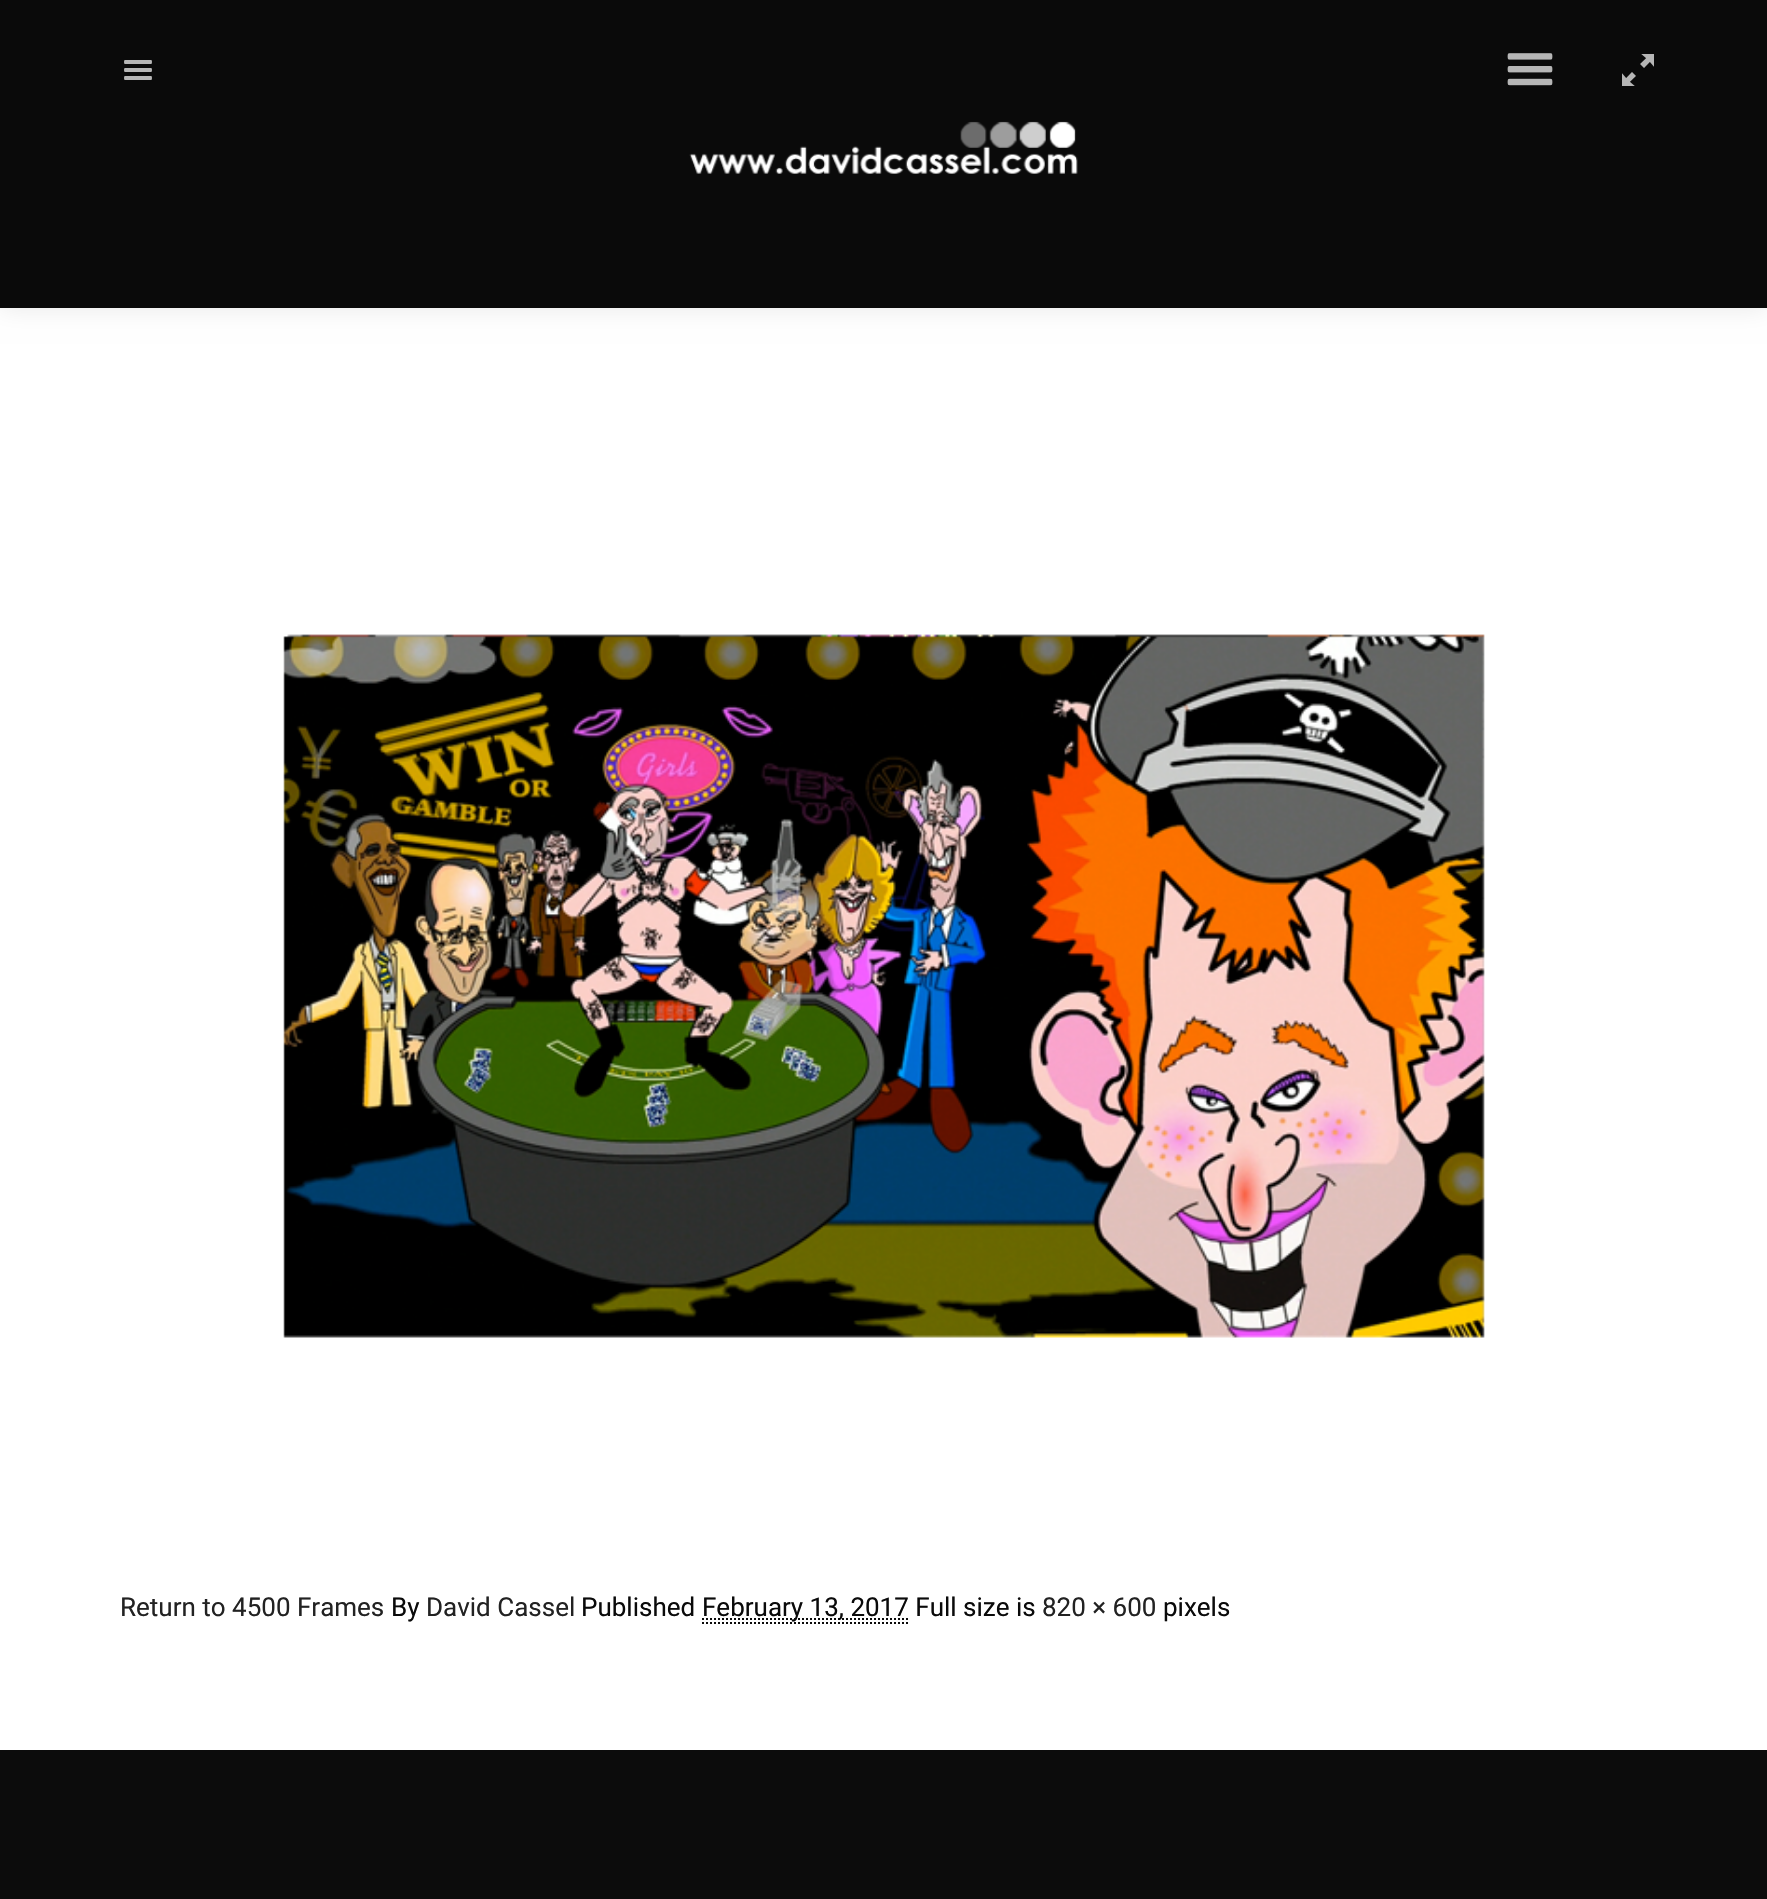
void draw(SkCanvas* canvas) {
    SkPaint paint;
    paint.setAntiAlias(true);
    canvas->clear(0xFFFFFFFF);
    paint.setColor(0x17000000);
    paint.setMaskFilter(SkMaskFilter::MakeBlur(kNormal_SkBlurStyle, 12));
    canvas->drawRect(SkRect::MakeXYWH(0, 0, 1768, 308), paint);
    paint.setMaskFilter(nullptr);
    paint.setColor(0xFF0A0A0A);
    canvas->drawRect(SkRect::MakeXYWH(0, 0, 1767, 308), paint);
    canvas->drawImageRect(SkImages::DeferredFromEncodedData(SkData::MakeFromFileName("img1.png")), SkRect::MakeXYWH(689, 121, 389, 53), SkSamplingOptions());
    canvas->drawImageRect(SkImages::DeferredFromEncodedData(SkData::MakeFromFileName("img2.png")), SkRect::MakeXYWH(124, 60, 28, 20), SkSamplingOptions());
    canvas->drawImageRect(SkImages::DeferredFromEncodedData(SkData::MakeFromFileName("img3.png")), SkRect::MakeXYWH(1507, 53, 46, 33), SkSamplingOptions());
    canvas->drawImageRect(SkImages::DeferredFromEncodedData(SkData::MakeFromFileName("img4.png")), SkRect::MakeXYWH(1622, 54, 32, 32), SkSamplingOptions());
    canvas->drawImageRect(SkImages::DeferredFromEncodedData(SkData::MakeFromFileName("img5.png")), SkRect::MakeXYWH(283, 634, 1202, 704), SkSamplingOptions());
    SkFont font1(fontMgr->matchFamilyStyle("Roboto", SkFontStyle::Normal()), 26);
    font1.setSubpixel(true);
    paint.setColor(0xFF222222);
    canvas->drawString("Return to 4500 Frames", 120, 1616, font1, paint);
    paint.setColor(0xFF0A0A0A);
    canvas->drawString("By", 391, 1616, font1, paint);
    paint.setColor(0xFF222222);
    canvas->drawString("David Cassel", 426, 1616, font1, paint);
    paint.setColor(0xFF0A0A0A);
    canvas->drawString("Published", 581, 1616, font1, paint);
    paint.setStyle(SkPaint::kStroke_Style);
    paint.setStrokeWidth(2);
    paint.setPathEffect(SkDashPathEffect::Make({{2, 2}}, 0));
    canvas->drawPath(SkPathBuilder().moveTo(702, 1619).lineTo(909, 1619).detach(), paint);
    paint.setPathEffect(nullptr);
    paint.setStyle(SkPaint::kFill_Style);
    canvas->drawString("February 13, 2017 Full size is", 702, 1616, font1, paint);
    paint.setStyle(SkPaint::kStroke_Style);
    paint.setPathEffect(SkDashPathEffect::Make({{2, 2}}, 0));
    canvas->drawPath(SkPathBuilder().moveTo(702, 1623).lineTo(908, 1623).detach(), paint);
    paint.setPathEffect(nullptr);
    paint.setStyle(SkPaint::kFill_Style);
    paint.setColor(0xFF222222);
    canvas->drawString("820 × 600", 1042, 1616, font1, paint);
    paint.setColor(0xFF0A0A0A);
    canvas->drawString("pixels", 1163, 1616, font1, paint);
    paint.setColor(0xFF0C0C0C);
    canvas->drawRect(SkRect::MakeXYWH(0, 1750, 1767, 149), paint);
}
